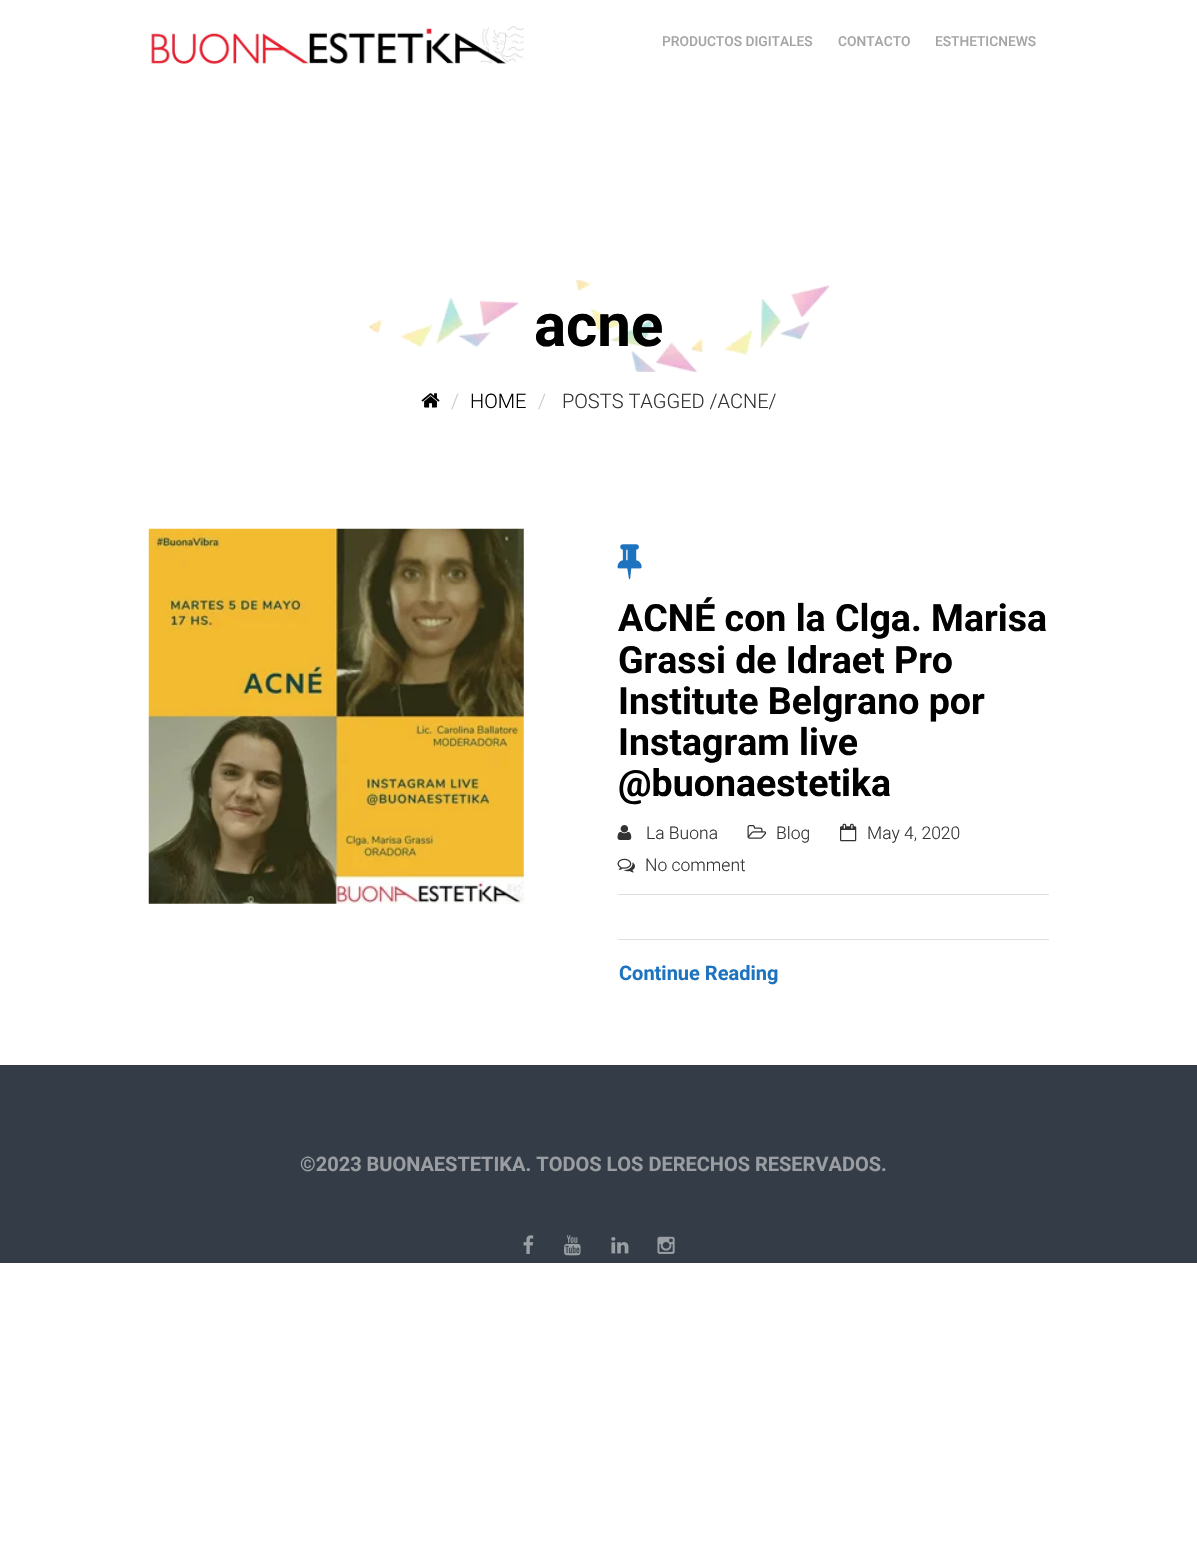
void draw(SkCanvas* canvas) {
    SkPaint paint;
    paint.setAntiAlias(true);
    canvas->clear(0xFFFFFFFF);
    canvas->drawImageRect(SkImages::DeferredFromEncodedData(SkData::MakeFromFileName("img1.png")), SkRect::MakeXYWH(151, 26, 373, 39), SkSamplingOptions());
    SkFont font1(fontMgr->matchFamilyStyle("Roboto", SkFontStyle(500, SkFontStyle::kNormal_Width, SkFontStyle::kUpright_Slant)), 13.75f);
    font1.setSubpixel(true);
    paint.setColor(0xFFA5A5A5);
    canvas->drawString("PRODUCTOS DIGITALES", 662, 46, font1, paint);
    canvas->drawString("CONTACTO", 838, 46, font1, paint);
    canvas->drawString("ESTHETICNEWS", 935, 46, font1, paint);
    canvas->drawImageRect(SkImages::DeferredFromEncodedData(SkData::MakeFromFileName("img2.png")), SkRect::MakeXYWH(368, 280, 462, 93), SkSamplingOptions());
    SkFont font2(fontMgr->matchFamilyStyle("Roboto", SkFontStyle::Bold()), 60);
    font2.setSubpixel(true);
    paint.setColor(0xFF000000);
    canvas->drawString("acne", 534, 346, font2, paint);
    canvas->drawImageRect(SkImages::DeferredFromEncodedData(SkData::MakeFromFileName("img3.png")), SkRect::MakeXYWH(421, 393, 19, 15), SkSamplingOptions());
    SkFont font3(fontMgr->matchFamilyStyle("Roboto", SkFontStyle(300, SkFontStyle::kNormal_Width, SkFontStyle::kUpright_Slant)), 20);
    font3.setSubpixel(true);
    paint.setColor(0xFFCCCCCC);
    canvas->drawString("/", 451, 408, font3, paint);
    paint.setColor(0xFF000000);
    canvas->drawString("HOME", 470, 408, font3, paint);
    paint.setColor(0xFFCCCCCC);
    canvas->drawString("/", 538, 408, font3, paint);
    paint.setColor(0xFF333333);
    canvas->drawString("POSTS TAGGED /ACNE/", 562, 408, font3, paint);
    canvas->drawImageRect(SkImages::DeferredFromEncodedData(SkData::MakeFromFileName("img4.png")), SkRect::MakeXYWH(148, 528, 376, 376), SkSamplingOptions());
    canvas->drawImageRect(SkImages::DeferredFromEncodedData(SkData::MakeFromFileName("img5.png")), SkRect::MakeXYWH(617, 544, 25, 36), SkSamplingOptions());
    SkFont font4(fontMgr->matchFamilyStyle("Roboto", SkFontStyle::Bold()), 37.5f);
    font4.setSubpixel(true);
    paint.setColor(0xFF000000);
    canvas->drawString("ACNÉ con la Clga. Marisa", 618, 631, font4, paint);
    canvas->drawString("Grassi de Idraet Pro", 618, 673, font4, paint);
    canvas->drawString("Institute Belgrano por", 618, 714, font4, paint);
    canvas->drawString("Instagram live", 618, 755, font4, paint);
    canvas->drawString("@buonaestetika", 618, 796, font4, paint);
    canvas->drawImageRect(SkImages::DeferredFromEncodedData(SkData::MakeFromFileName("img6.png")), SkRect::MakeXYWH(617, 825, 15, 15), SkSamplingOptions());
    SkFont font5(fontMgr->matchFamilyStyle("Roboto", SkFontStyle(300, SkFontStyle::kNormal_Width, SkFontStyle::kUpright_Slant)), 17.5f);
    font5.setSubpixel(true);
    paint.setColor(0xFF333333);
    canvas->drawString("La Buona", 646, 839, font5, paint);
    canvas->drawImageRect(SkImages::DeferredFromEncodedData(SkData::MakeFromFileName("img7.png")), SkRect::MakeXYWH(747, 825, 20, 14), SkSamplingOptions());
    canvas->drawString("Blog", 776, 839, font5, paint);
    canvas->drawImageRect(SkImages::DeferredFromEncodedData(SkData::MakeFromFileName("img8.png")), SkRect::MakeXYWH(840, 823, 17, 19), SkSamplingOptions());
    canvas->drawString("May 4, 2020", 867, 839, font5, paint);
    canvas->drawImageRect(SkImages::DeferredFromEncodedData(SkData::MakeFromFileName("img9.png")), SkRect::MakeXYWH(617, 858, 18, 15), SkSamplingOptions());
    canvas->drawString("No comment", 645, 871, font5, paint);
    paint.setColor(0xFFDFDFDF);
    canvas->drawRect(SkRect::MakeXYWH(618, 894, 431, 1), paint);
    canvas->drawRect(SkRect::MakeXYWH(618, 939, 431, 1), paint);
    SkFont font6(fontMgr->matchFamilyStyle("Roboto", SkFontStyle::Bold()), 20);
    font6.setSubpixel(true);
    paint.setColor(0xFF1E73BE);
    canvas->drawString("Continue Reading", 619, 980, font6, paint);
    paint.setColor(0xFF343D47);
    canvas->drawRect(SkRect::MakeXYWH(0, 1066, 1197, 197), paint);
    paint.setColor(0xFF303841);
    canvas->drawRect(SkRect::MakeXYWH(0, 1065, 1197, 1), paint);
    paint.setColor(0xFF9A9EA3);
    canvas->drawString("©2023 BUONAESTETIKA. TODOS LOS DERECHOS RESERVADOS.", 300, 1171, font6, paint);
    canvas->drawImageRect(SkImages::DeferredFromEncodedData(SkData::MakeFromFileName("img10.png")), SkRect::MakeXYWH(523, 1235, 11, 19), SkSamplingOptions());
    canvas->drawImageRect(SkImages::DeferredFromEncodedData(SkData::MakeFromFileName("img11.png")), SkRect::MakeXYWH(564, 1235, 17, 21), SkSamplingOptions());
    canvas->drawImageRect(SkImages::DeferredFromEncodedData(SkData::MakeFromFileName("img12.png")), SkRect::MakeXYWH(611, 1237, 18, 17), SkSamplingOptions());
    canvas->drawImageRect(SkImages::DeferredFromEncodedData(SkData::MakeFromFileName("img13.png")), SkRect::MakeXYWH(657, 1236, 18, 18), SkSamplingOptions());
}
